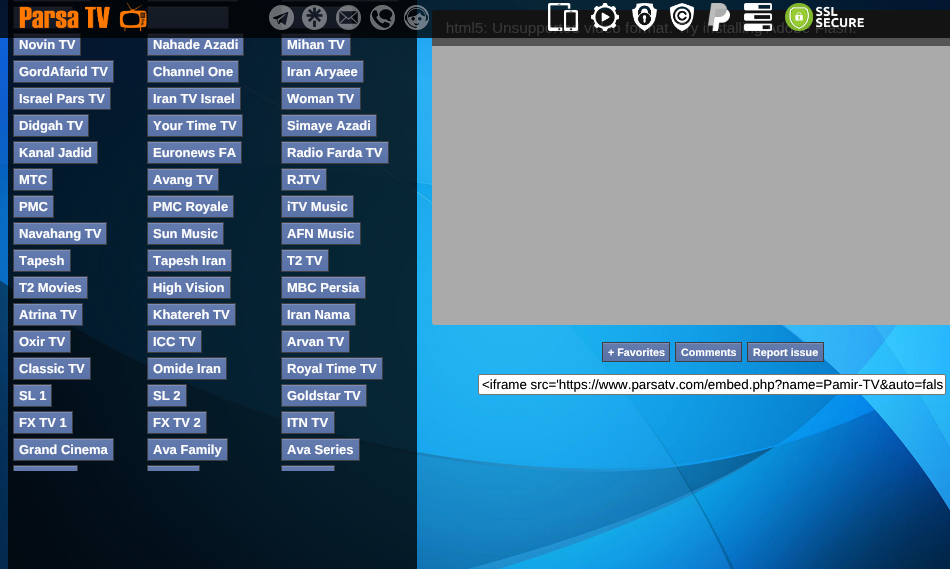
void draw(SkCanvas* canvas) {
    SkPaint paint;
    paint.setAntiAlias(true);
    canvas->clear(0xFFFFFFFF);
    canvas->drawImageRect(SkImages::DeferredFromEncodedData(SkData::MakeFromFileName("img1.png")), SkRect::MakeXYWH(0, 0, 950, 569), SkSamplingOptions());
    paint.setColor(0xC7000000);
    canvas->drawRect(SkRect::MakeXYWH(8, 0, 409, 569), paint);
    {
        const SkColor colors[] = {0xFF637AAD, 0xFF5972A7};
        const float stops[] = {0.05f, 1};
        const SkPoint ends[] = {{52, -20}, {52, 1}};
        paint.setShader(SkGradientShader::MakeLinear(ends, colors, stops, 2, SkTileMode::kClamp));
        paint.setAlpha(255);
    }
    canvas->drawRect(SkRect::MakeXYWH(13, 0, 78, 1), paint);
    paint.setStyle(SkPaint::kStroke_Style);
    paint.setStrokeWidth(1);
    paint.setShader(nullptr);
    paint.setColor(0xFF3F3F42);
    canvas->drawRect(SkRect::MakeXYWH(13.5f, -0.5f, 77, 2), paint);
    paint.setStyle(SkPaint::kFill_Style);
    {
        const SkColor colors[] = {0xFF637AAD, 0xFF5972A7};
        const float stops[] = {0.05f, 1};
        const SkPoint ends[] = {{193, -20}, {193, 1}};
        paint.setShader(SkGradientShader::MakeLinear(ends, colors, stops, 2, SkTileMode::kClamp));
        paint.setAlpha(255);
    }
    canvas->drawRect(SkRect::MakeXYWH(147, 0, 91, 1), paint);
    paint.setStyle(SkPaint::kStroke_Style);
    paint.setShader(nullptr);
    paint.setColor(0xFF3F3F42);
    canvas->drawRect(SkRect::MakeXYWH(147.5f, -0.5f, 90, 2), paint);
    paint.setStyle(SkPaint::kFill_Style);
    {
        const SkColor colors[] = {0xFF637AAD, 0xFF5972A7};
        const float stops[] = {0.05f, 1};
        const SkPoint ends[] = {{340, -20}, {340, 1}};
        paint.setShader(SkGradientShader::MakeLinear(ends, colors, stops, 2, SkTileMode::kClamp));
        paint.setAlpha(255);
    }
    canvas->drawRect(SkRect::MakeXYWH(281, 0, 118, 1), paint);
    paint.setStyle(SkPaint::kStroke_Style);
    paint.setShader(nullptr);
    paint.setColor(0xFF3F3F42);
    canvas->drawRect(SkRect::MakeXYWH(281.5f, -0.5f, 117, 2), paint);
    paint.setStyle(SkPaint::kFill_Style);
    {
        const SkColor colors[] = {0xFF637AAD, 0xFF5972A7};
        const float stops[] = {0.05f, 1};
        const SkPoint ends[] = {{43, 7}, {43, 28}};
        paint.setShader(SkGradientShader::MakeLinear(ends, colors, stops, 2, SkTileMode::kClamp));
        paint.setAlpha(255);
    }
    canvas->drawRect(SkRect::MakeXYWH(14, 8, 58, 20), paint);
    paint.setShader(nullptr);
    paint.setColor(0xFF7A8EB9);
    canvas->drawRect(SkRect::MakeXYWH(14, 7, 58, 1), paint);
    paint.setStyle(SkPaint::kStroke_Style);
    paint.setColor(0xFF3F3F42);
    canvas->drawRect(SkRect::MakeXYWH(13.5f, 6.5f, 59, 22), paint);
    paint.setStyle(SkPaint::kFill_Style);
    {
        const SkColor colors[] = {0xFF637AAD, 0xFF5972A7};
        const float stops[] = {0.05f, 1};
        const SkPoint ends[] = {{188, 7}, {188, 28}};
        paint.setShader(SkGradientShader::MakeLinear(ends, colors, stops, 2, SkTileMode::kClamp));
        paint.setAlpha(255);
    }
    canvas->drawRect(SkRect::MakeXYWH(148, 8, 80, 20), paint);
    paint.setShader(nullptr);
    paint.setColor(0xFF7A8EB9);
    canvas->drawRect(SkRect::MakeXYWH(148, 7, 80, 1), paint);
    paint.setStyle(SkPaint::kStroke_Style);
    paint.setColor(0xFF3F3F42);
    canvas->drawRect(SkRect::MakeXYWH(147.5f, 6.5f, 81, 22), paint);
    paint.setStyle(SkPaint::kFill_Style);
    {
        const SkColor colors[] = {0xFF637AAD, 0xFF5972A7};
        const float stops[] = {0.05f, 1};
        const SkPoint ends[] = {{317, 7}, {317, 28}};
        paint.setShader(SkGradientShader::MakeLinear(ends, colors, stops, 2, SkTileMode::kClamp));
        paint.setAlpha(255);
    }
    canvas->drawRect(SkRect::MakeXYWH(282, 8, 70, 20), paint);
    paint.setShader(nullptr);
    paint.setColor(0xFF7A8EB9);
    canvas->drawRect(SkRect::MakeXYWH(282, 7, 70, 1), paint);
    paint.setStyle(SkPaint::kStroke_Style);
    paint.setColor(0xFF3F3F42);
    canvas->drawRect(SkRect::MakeXYWH(281.5f, 6.5f, 71, 22), paint);
    paint.setStyle(SkPaint::kFill_Style);
    {
        const SkColor colors[] = {0xFF637AAD, 0xFF5972A7};
        const float stops[] = {0.05f, 1};
        const SkPoint ends[] = {{47, 34}, {47, 55}};
        paint.setShader(SkGradientShader::MakeLinear(ends, colors, stops, 2, SkTileMode::kClamp));
        paint.setAlpha(255);
    }
    canvas->drawRect(SkRect::MakeXYWH(14, 35, 66, 20), paint);
    paint.setShader(nullptr);
    paint.setColor(0xFF7A8EB9);
    canvas->drawRect(SkRect::MakeXYWH(14, 34, 66, 1), paint);
    paint.setStyle(SkPaint::kStroke_Style);
    paint.setColor(0xFF3F3F42);
    canvas->drawRect(SkRect::MakeXYWH(13.5f, 33.5f, 67, 22), paint);
    paint.setStyle(SkPaint::kFill_Style);
    {
        const SkColor colors[] = {0xFF637AAD, 0xFF5972A7};
        const float stops[] = {0.05f, 1};
        const SkPoint ends[] = {{196, 34}, {196, 55}};
        paint.setShader(SkGradientShader::MakeLinear(ends, colors, stops, 2, SkTileMode::kClamp));
        paint.setAlpha(255);
    }
    canvas->drawRect(SkRect::MakeXYWH(148, 35, 95, 20), paint);
    paint.setShader(nullptr);
    paint.setColor(0xFF7A8EB9);
    canvas->drawRect(SkRect::MakeXYWH(148, 34, 95, 1), paint);
    paint.setStyle(SkPaint::kStroke_Style);
    paint.setColor(0xFF3F3F42);
    canvas->drawRect(SkRect::MakeXYWH(147.5f, 33.5f, 96, 22), paint);
    paint.setStyle(SkPaint::kFill_Style);
    {
        const SkColor colors[] = {0xFF637AAD, 0xFF5972A7};
        const float stops[] = {0.05f, 1};
        const SkPoint ends[] = {{316, 34}, {316, 55}};
        paint.setShader(SkGradientShader::MakeLinear(ends, colors, stops, 2, SkTileMode::kClamp));
        paint.setAlpha(255);
    }
    canvas->drawRect(SkRect::MakeXYWH(282, 35, 68, 20), paint);
    paint.setShader(nullptr);
    paint.setColor(0xFF7A8EB9);
    canvas->drawRect(SkRect::MakeXYWH(282, 34, 68, 1), paint);
    paint.setStyle(SkPaint::kStroke_Style);
    paint.setColor(0xFF3F3F42);
    canvas->drawRect(SkRect::MakeXYWH(281.5f, 33.5f, 69, 22), paint);
    canvas->drawImageRect(SkImages::DeferredFromEncodedData(SkData::MakeFromFileName("img15.png")), SkRect::MakeXYWH(432, 10, 518, 315), SkSamplingOptions());
    paint.setStyle(SkPaint::kFill_Style);
    paint.setColor(0xC7000000);
    canvas->drawRect(SkRect::MakeXYWH(0, 0, 950, 38), paint);
    canvas->drawImageRect(SkImages::DeferredFromEncodedData(SkData::MakeFromFileName("img2.png")), SkRect::MakeXYWH(19, 2, 128, 30), SkSamplingOptions());
    canvas->drawImageRect(SkImages::DeferredFromEncodedData(SkData::MakeFromFileName("img3.png")), SkRect::MakeXYWH(269, 5, 25, 25), SkSamplingOptions());
    canvas->drawImageRect(SkImages::DeferredFromEncodedData(SkData::MakeFromFileName("img4.png")), SkRect::MakeXYWH(302, 5, 25, 25), SkSamplingOptions());
    canvas->drawImageRect(SkImages::DeferredFromEncodedData(SkData::MakeFromFileName("img5.png")), SkRect::MakeXYWH(336, 5, 25, 25), SkSamplingOptions());
    canvas->drawImageRect(SkImages::DeferredFromEncodedData(SkData::MakeFromFileName("img6.png")), SkRect::MakeXYWH(370, 5, 25, 25), SkSamplingOptions());
    canvas->drawImageRect(SkImages::DeferredFromEncodedData(SkData::MakeFromFileName("img7.png")), SkRect::MakeXYWH(404, 5, 25, 25), SkSamplingOptions());
    canvas->drawImageRect(SkImages::DeferredFromEncodedData(SkData::MakeFromFileName("img8.png")), SkRect::MakeXYWH(548, 3, 30, 28), SkSamplingOptions());
    canvas->drawImageRect(SkImages::DeferredFromEncodedData(SkData::MakeFromFileName("img9.png")), SkRect::MakeXYWH(591, 3, 28, 28), SkSamplingOptions());
    canvas->drawImageRect(SkImages::DeferredFromEncodedData(SkData::MakeFromFileName("img10.png")), SkRect::MakeXYWH(632, 3, 25, 28), SkSamplingOptions());
    canvas->drawImageRect(SkImages::DeferredFromEncodedData(SkData::MakeFromFileName("img11.png")), SkRect::MakeXYWH(670, 3, 24, 28), SkSamplingOptions());
    canvas->drawImageRect(SkImages::DeferredFromEncodedData(SkData::MakeFromFileName("img12.png")), SkRect::MakeXYWH(708, 3, 22, 28), SkSamplingOptions());
    canvas->drawImageRect(SkImages::DeferredFromEncodedData(SkData::MakeFromFileName("img13.png")), SkRect::MakeXYWH(744, 3, 28, 28), SkSamplingOptions());
    canvas->drawImageRect(SkImages::DeferredFromEncodedData(SkData::MakeFromFileName("img14.png")), SkRect::MakeXYWH(785, 3, 79, 28), SkSamplingOptions());
    SkFont font1(fontMgr->matchFamilyStyle("Liberation Sans", SkFontStyle::Bold()), 13);
    font1.setSubpixel(true);
    paint.setColor(0xFFFFFFFF);
    canvas->drawString("Novin TV", 19, 49, font1, paint);
    canvas->drawString("Nahade Azadi", 153, 49, font1, paint);
    canvas->drawString("Mihan TV", 287, 49, font1, paint);
    {
        const SkColor colors[] = {0xFF637AAD, 0xFF5972A7};
        const float stops[] = {0.05f, 1};
        const SkPoint ends[] = {{64, 61}, {64, 82}};
        paint.setShader(SkGradientShader::MakeLinear(ends, colors, stops, 2, SkTileMode::kClamp));
        paint.setAlpha(255);
    }
    canvas->drawRect(SkRect::MakeXYWH(14, 62, 99, 20), paint);
    paint.setShader(nullptr);
    paint.setColor(0xFF7A8EB9);
    canvas->drawRect(SkRect::MakeXYWH(14, 61, 99, 1), paint);
    paint.setStyle(SkPaint::kStroke_Style);
    paint.setColor(0xFF3F3F42);
    canvas->drawRect(SkRect::MakeXYWH(13.5f, 60.5f, 100, 22), paint);
    paint.setStyle(SkPaint::kFill_Style);
    paint.setColor(0xFFFFFFFF);
    canvas->drawString("GordAfarid TV", 19, 76, font1, paint);
    {
        const SkColor colors[] = {0xFF637AAD, 0xFF5972A7};
        const float stops[] = {0.05f, 1};
        const SkPoint ends[] = {{193, 61}, {193, 82}};
        paint.setShader(SkGradientShader::MakeLinear(ends, colors, stops, 2, SkTileMode::kClamp));
        paint.setAlpha(255);
    }
    canvas->drawRect(SkRect::MakeXYWH(148, 62, 90, 20), paint);
    paint.setShader(nullptr);
    paint.setColor(0xFF7A8EB9);
    canvas->drawRect(SkRect::MakeXYWH(148, 61, 90, 1), paint);
    paint.setStyle(SkPaint::kStroke_Style);
    paint.setColor(0xFF3F3F42);
    canvas->drawRect(SkRect::MakeXYWH(147.5f, 60.5f, 91, 22), paint);
    paint.setStyle(SkPaint::kFill_Style);
    paint.setColor(0xFFFFFFFF);
    canvas->drawString("Channel One", 153, 76, font1, paint);
    {
        const SkColor colors[] = {0xFF637AAD, 0xFF5972A7};
        const float stops[] = {0.05f, 1};
        const SkPoint ends[] = {{323, 61}, {323, 82}};
        paint.setShader(SkGradientShader::MakeLinear(ends, colors, stops, 2, SkTileMode::kClamp));
        paint.setAlpha(255);
    }
    canvas->drawRect(SkRect::MakeXYWH(282, 62, 81, 20), paint);
    paint.setShader(nullptr);
    paint.setColor(0xFF7A8EB9);
    canvas->drawRect(SkRect::MakeXYWH(282, 61, 81, 1), paint);
    paint.setStyle(SkPaint::kStroke_Style);
    paint.setColor(0xFF3F3F42);
    canvas->drawRect(SkRect::MakeXYWH(281.5f, 60.5f, 82, 22), paint);
    paint.setStyle(SkPaint::kFill_Style);
    paint.setColor(0xFFFFFFFF);
    canvas->drawString("Iran Aryaee", 287, 76, font1, paint);
    {
        const SkColor colors[] = {0xFF637AAD, 0xFF5972A7};
        const float stops[] = {0.05f, 1};
        const SkPoint ends[] = {{62, 88}, {62, 109}};
        paint.setShader(SkGradientShader::MakeLinear(ends, colors, stops, 2, SkTileMode::kClamp));
        paint.setAlpha(255);
    }
    canvas->drawRect(SkRect::MakeXYWH(14, 89, 96, 20), paint);
    paint.setShader(nullptr);
    paint.setColor(0xFF7A8EB9);
    canvas->drawRect(SkRect::MakeXYWH(14, 88, 96, 1), paint);
    paint.setStyle(SkPaint::kStroke_Style);
    paint.setColor(0xFF3F3F42);
    canvas->drawRect(SkRect::MakeXYWH(13.5f, 87.5f, 97, 22), paint);
    paint.setStyle(SkPaint::kFill_Style);
    paint.setColor(0xFFFFFFFF);
    canvas->drawString("Israel Pars TV", 19, 103, font1, paint);
    {
        const SkColor colors[] = {0xFF637AAD, 0xFF5972A7};
        const float stops[] = {0.05f, 1};
        const SkPoint ends[] = {{194, 88}, {194, 109}};
        paint.setShader(SkGradientShader::MakeLinear(ends, colors, stops, 2, SkTileMode::kClamp));
        paint.setAlpha(255);
    }
    canvas->drawRect(SkRect::MakeXYWH(148, 89, 92, 20), paint);
    paint.setShader(nullptr);
    paint.setColor(0xFF7A8EB9);
    canvas->drawRect(SkRect::MakeXYWH(148, 88, 92, 1), paint);
    paint.setStyle(SkPaint::kStroke_Style);
    paint.setColor(0xFF3F3F42);
    canvas->drawRect(SkRect::MakeXYWH(147.5f, 87.5f, 93, 22), paint);
    paint.setStyle(SkPaint::kFill_Style);
    paint.setColor(0xFFFFFFFF);
    canvas->drawString("Iran TV Israel", 153, 103, font1, paint);
    {
        const SkColor colors[] = {0xFF637AAD, 0xFF5972A7};
        const float stops[] = {0.05f, 1};
        const SkPoint ends[] = {{321, 88}, {321, 109}};
        paint.setShader(SkGradientShader::MakeLinear(ends, colors, stops, 2, SkTileMode::kClamp));
        paint.setAlpha(255);
    }
    canvas->drawRect(SkRect::MakeXYWH(282, 89, 78, 20), paint);
    paint.setShader(nullptr);
    paint.setColor(0xFF7A8EB9);
    canvas->drawRect(SkRect::MakeXYWH(282, 88, 78, 1), paint);
    paint.setStyle(SkPaint::kStroke_Style);
    paint.setColor(0xFF3F3F42);
    canvas->drawRect(SkRect::MakeXYWH(281.5f, 87.5f, 79, 22), paint);
    paint.setStyle(SkPaint::kFill_Style);
    paint.setColor(0xFFFFFFFF);
    canvas->drawString("Woman TV", 287, 103, font1, paint);
    {
        const SkColor colors[] = {0xFF637AAD, 0xFF5972A7};
        const float stops[] = {0.05f, 1};
        const SkPoint ends[] = {{51, 115}, {51, 136}};
        paint.setShader(SkGradientShader::MakeLinear(ends, colors, stops, 2, SkTileMode::kClamp));
        paint.setAlpha(255);
    }
    canvas->drawRect(SkRect::MakeXYWH(14, 116, 74, 20), paint);
    paint.setShader(nullptr);
    paint.setColor(0xFF7A8EB9);
    canvas->drawRect(SkRect::MakeXYWH(14, 115, 74, 1), paint);
    paint.setStyle(SkPaint::kStroke_Style);
    paint.setColor(0xFF3F3F42);
    canvas->drawRect(SkRect::MakeXYWH(13.5f, 114.5f, 75, 22), paint);
    paint.setStyle(SkPaint::kFill_Style);
    paint.setColor(0xFFFFFFFF);
    canvas->drawString("Didgah TV", 19, 130, font1, paint);
    {
        const SkColor colors[] = {0xFF637AAD, 0xFF5972A7};
        const float stops[] = {0.05f, 1};
        const SkPoint ends[] = {{195, 115}, {195, 136}};
        paint.setShader(SkGradientShader::MakeLinear(ends, colors, stops, 2, SkTileMode::kClamp));
        paint.setAlpha(255);
    }
    canvas->drawRect(SkRect::MakeXYWH(148, 116, 94, 20), paint);
    paint.setShader(nullptr);
    paint.setColor(0xFF7A8EB9);
    canvas->drawRect(SkRect::MakeXYWH(148, 115, 94, 1), paint);
    paint.setStyle(SkPaint::kStroke_Style);
    paint.setColor(0xFF3F3F42);
    canvas->drawRect(SkRect::MakeXYWH(147.5f, 114.5f, 95, 22), paint);
    paint.setStyle(SkPaint::kFill_Style);
    paint.setColor(0xFFFFFFFF);
    canvas->drawString("Your Time TV", 153, 130, font1, paint);
    {
        const SkColor colors[] = {0xFF637AAD, 0xFF5972A7};
        const float stops[] = {0.05f, 1};
        const SkPoint ends[] = {{329, 115}, {329, 136}};
        paint.setShader(SkGradientShader::MakeLinear(ends, colors, stops, 2, SkTileMode::kClamp));
        paint.setAlpha(255);
    }
    canvas->drawRect(SkRect::MakeXYWH(282, 116, 94, 20), paint);
    paint.setShader(nullptr);
    paint.setColor(0xFF7A8EB9);
    canvas->drawRect(SkRect::MakeXYWH(282, 115, 94, 1), paint);
    paint.setStyle(SkPaint::kStroke_Style);
    paint.setColor(0xFF3F3F42);
    canvas->drawRect(SkRect::MakeXYWH(281.5f, 114.5f, 95, 22), paint);
    paint.setStyle(SkPaint::kFill_Style);
    paint.setColor(0xFFFFFFFF);
    canvas->drawString("Simaye Azadi", 287, 130, font1, paint);
    {
        const SkColor colors[] = {0xFF637AAD, 0xFF5972A7};
        const float stops[] = {0.05f, 1};
        const SkPoint ends[] = {{56, 142}, {56, 163}};
        paint.setShader(SkGradientShader::MakeLinear(ends, colors, stops, 2, SkTileMode::kClamp));
        paint.setAlpha(255);
    }
    canvas->drawRect(SkRect::MakeXYWH(14, 143, 83, 20), paint);
    paint.setShader(nullptr);
    paint.setColor(0xFF7A8EB9);
    canvas->drawRect(SkRect::MakeXYWH(14, 142, 83, 1), paint);
    paint.setStyle(SkPaint::kStroke_Style);
    paint.setColor(0xFF3F3F42);
    canvas->drawRect(SkRect::MakeXYWH(13.5f, 141.5f, 84, 22), paint);
    paint.setStyle(SkPaint::kFill_Style);
    paint.setColor(0xFFFFFFFF);
    canvas->drawString("Kanal Jadid", 19, 157, font1, paint);
    {
        const SkColor colors[] = {0xFF637AAD, 0xFF5972A7};
        const float stops[] = {0.05f, 1};
        const SkPoint ends[] = {{195, 142}, {195, 163}};
        paint.setShader(SkGradientShader::MakeLinear(ends, colors, stops, 2, SkTileMode::kClamp));
        paint.setAlpha(255);
    }
    canvas->drawRect(SkRect::MakeXYWH(148, 143, 93, 20), paint);
    paint.setShader(nullptr);
    paint.setColor(0xFF7A8EB9);
    canvas->drawRect(SkRect::MakeXYWH(148, 142, 93, 1), paint);
    paint.setStyle(SkPaint::kStroke_Style);
    paint.setColor(0xFF3F3F42);
    canvas->drawRect(SkRect::MakeXYWH(147.5f, 141.5f, 94, 22), paint);
    paint.setStyle(SkPaint::kFill_Style);
    paint.setColor(0xFFFFFFFF);
    canvas->drawString("Euronews FA", 153, 157, font1, paint);
    {
        const SkColor colors[] = {0xFF637AAD, 0xFF5972A7};
        const float stops[] = {0.05f, 1};
        const SkPoint ends[] = {{335, 142}, {335, 163}};
        paint.setShader(SkGradientShader::MakeLinear(ends, colors, stops, 2, SkTileMode::kClamp));
        paint.setAlpha(255);
    }
    canvas->drawRect(SkRect::MakeXYWH(282, 143, 106, 20), paint);
    paint.setShader(nullptr);
    paint.setColor(0xFF7A8EB9);
    canvas->drawRect(SkRect::MakeXYWH(282, 142, 106, 1), paint);
    paint.setStyle(SkPaint::kStroke_Style);
    paint.setColor(0xFF3F3F42);
    canvas->drawRect(SkRect::MakeXYWH(281.5f, 141.5f, 107, 22), paint);
    paint.setStyle(SkPaint::kFill_Style);
    paint.setColor(0xFFFFFFFF);
    canvas->drawString("Radio Farda TV", 287, 157, font1, paint);
    {
        const SkColor colors[] = {0xFF637AAD, 0xFF5972A7};
        const float stops[] = {0.05f, 1};
        const SkPoint ends[] = {{33, 169}, {33, 190}};
        paint.setShader(SkGradientShader::MakeLinear(ends, colors, stops, 2, SkTileMode::kClamp));
        paint.setAlpha(255);
    }
    canvas->drawRect(SkRect::MakeXYWH(14, 170, 38, 20), paint);
    paint.setShader(nullptr);
    paint.setColor(0xFF7A8EB9);
    canvas->drawRect(SkRect::MakeXYWH(14, 169, 38, 1), paint);
    paint.setStyle(SkPaint::kStroke_Style);
    paint.setColor(0xFF3F3F42);
    canvas->drawRect(SkRect::MakeXYWH(13.5f, 168.5f, 39, 22), paint);
    paint.setStyle(SkPaint::kFill_Style);
    paint.setColor(0xFFFFFFFF);
    canvas->drawString("MTC", 19, 184, font1, paint);
    {
        const SkColor colors[] = {0xFF637AAD, 0xFF5972A7};
        const float stops[] = {0.05f, 1};
        const SkPoint ends[] = {{183, 169}, {183, 190}};
        paint.setShader(SkGradientShader::MakeLinear(ends, colors, stops, 2, SkTileMode::kClamp));
        paint.setAlpha(255);
    }
    canvas->drawRect(SkRect::MakeXYWH(148, 170, 70, 20), paint);
    paint.setShader(nullptr);
    paint.setColor(0xFF7A8EB9);
    canvas->drawRect(SkRect::MakeXYWH(148, 169, 70, 1), paint);
    paint.setStyle(SkPaint::kStroke_Style);
    paint.setColor(0xFF3F3F42);
    canvas->drawRect(SkRect::MakeXYWH(147.5f, 168.5f, 71, 22), paint);
    paint.setStyle(SkPaint::kFill_Style);
    paint.setColor(0xFFFFFFFF);
    canvas->drawString("Avang TV", 153, 184, font1, paint);
    {
        const SkColor colors[] = {0xFF637AAD, 0xFF5972A7};
        const float stops[] = {0.05f, 1};
        const SkPoint ends[] = {{304, 169}, {304, 190}};
        paint.setShader(SkGradientShader::MakeLinear(ends, colors, stops, 2, SkTileMode::kClamp));
        paint.setAlpha(255);
    }
    canvas->drawRect(SkRect::MakeXYWH(282, 170, 44, 20), paint);
    paint.setShader(nullptr);
    paint.setColor(0xFF7A8EB9);
    canvas->drawRect(SkRect::MakeXYWH(282, 169, 44, 1), paint);
    paint.setStyle(SkPaint::kStroke_Style);
    paint.setColor(0xFF3F3F42);
    canvas->drawRect(SkRect::MakeXYWH(281.5f, 168.5f, 45, 22), paint);
    paint.setStyle(SkPaint::kFill_Style);
    paint.setColor(0xFFFFFFFF);
    canvas->drawString("RJTV", 287, 184, font1, paint);
    {
        const SkColor colors[] = {0xFF637AAD, 0xFF5972A7};
        const float stops[] = {0.05f, 1};
        const SkPoint ends[] = {{34, 196}, {34, 217}};
        paint.setShader(SkGradientShader::MakeLinear(ends, colors, stops, 2, SkTileMode::kClamp));
        paint.setAlpha(255);
    }
    canvas->drawRect(SkRect::MakeXYWH(14, 197, 39, 20), paint);
    paint.setShader(nullptr);
    paint.setColor(0xFF7A8EB9);
    canvas->drawRect(SkRect::MakeXYWH(14, 196, 39, 1), paint);
    paint.setStyle(SkPaint::kStroke_Style);
    paint.setColor(0xFF3F3F42);
    canvas->drawRect(SkRect::MakeXYWH(13.5f, 195.5f, 40, 22), paint);
    paint.setStyle(SkPaint::kFill_Style);
    paint.setColor(0xFFFFFFFF);
    canvas->drawString("PMC", 19, 211, font1, paint);
    {
        const SkColor colors[] = {0xFF637AAD, 0xFF5972A7};
        const float stops[] = {0.05f, 1};
        const SkPoint ends[] = {{191, 196}, {191, 217}};
        paint.setShader(SkGradientShader::MakeLinear(ends, colors, stops, 2, SkTileMode::kClamp));
        paint.setAlpha(255);
    }
    canvas->drawRect(SkRect::MakeXYWH(148, 197, 85, 20), paint);
    paint.setShader(nullptr);
    paint.setColor(0xFF7A8EB9);
    canvas->drawRect(SkRect::MakeXYWH(148, 196, 85, 1), paint);
    paint.setStyle(SkPaint::kStroke_Style);
    paint.setColor(0xFF3F3F42);
    canvas->drawRect(SkRect::MakeXYWH(147.5f, 195.5f, 86, 22), paint);
    paint.setStyle(SkPaint::kFill_Style);
    paint.setColor(0xFFFFFFFF);
    canvas->drawString("PMC Royale", 153, 211, font1, paint);
    {
        const SkColor colors[] = {0xFF637AAD, 0xFF5972A7};
        const float stops[] = {0.05f, 1};
        const SkPoint ends[] = {{318, 196}, {318, 217}};
        paint.setShader(SkGradientShader::MakeLinear(ends, colors, stops, 2, SkTileMode::kClamp));
        paint.setAlpha(255);
    }
    canvas->drawRect(SkRect::MakeXYWH(282, 197, 71, 20), paint);
    paint.setShader(nullptr);
    paint.setColor(0xFF7A8EB9);
    canvas->drawRect(SkRect::MakeXYWH(282, 196, 71, 1), paint);
    paint.setStyle(SkPaint::kStroke_Style);
    paint.setColor(0xFF3F3F42);
    canvas->drawRect(SkRect::MakeXYWH(281.5f, 195.5f, 72, 22), paint);
    paint.setStyle(SkPaint::kFill_Style);
    paint.setColor(0xFFFFFFFF);
    canvas->drawString("iTV Music", 287, 211, font1, paint);
    {
        const SkColor colors[] = {0xFF637AAD, 0xFF5972A7};
        const float stops[] = {0.05f, 1};
        const SkPoint ends[] = {{60, 223}, {60, 244}};
        paint.setShader(SkGradientShader::MakeLinear(ends, colors, stops, 2, SkTileMode::kClamp));
        paint.setAlpha(255);
    }
    canvas->drawRect(SkRect::MakeXYWH(14, 224, 92, 20), paint);
    paint.setShader(nullptr);
    paint.setColor(0xFF7A8EB9);
    canvas->drawRect(SkRect::MakeXYWH(14, 223, 92, 1), paint);
    paint.setStyle(SkPaint::kStroke_Style);
    paint.setColor(0xFF3F3F42);
    canvas->drawRect(SkRect::MakeXYWH(13.5f, 222.5f, 93, 22), paint);
    paint.setStyle(SkPaint::kFill_Style);
    paint.setColor(0xFFFFFFFF);
    canvas->drawString("Navahang TV", 19, 238, font1, paint);
    {
        const SkColor colors[] = {0xFF637AAD, 0xFF5972A7};
        const float stops[] = {0.05f, 1};
        const SkPoint ends[] = {{186, 223}, {186, 244}};
        paint.setShader(SkGradientShader::MakeLinear(ends, colors, stops, 2, SkTileMode::kClamp));
        paint.setAlpha(255);
    }
    canvas->drawRect(SkRect::MakeXYWH(148, 224, 75, 20), paint);
    paint.setShader(nullptr);
    paint.setColor(0xFF7A8EB9);
    canvas->drawRect(SkRect::MakeXYWH(148, 223, 75, 1), paint);
    paint.setStyle(SkPaint::kStroke_Style);
    paint.setColor(0xFF3F3F42);
    canvas->drawRect(SkRect::MakeXYWH(147.5f, 222.5f, 76, 22), paint);
    paint.setStyle(SkPaint::kFill_Style);
    paint.setColor(0xFFFFFFFF);
    canvas->drawString("Sun Music", 153, 238, font1, paint);
    {
        const SkColor colors[] = {0xFF637AAD, 0xFF5972A7};
        const float stops[] = {0.05f, 1};
        const SkPoint ends[] = {{321, 223}, {321, 244}};
        paint.setShader(SkGradientShader::MakeLinear(ends, colors, stops, 2, SkTileMode::kClamp));
        paint.setAlpha(255);
    }
    canvas->drawRect(SkRect::MakeXYWH(282, 224, 78, 20), paint);
    paint.setShader(nullptr);
    paint.setColor(0xFF7A8EB9);
    canvas->drawRect(SkRect::MakeXYWH(282, 223, 78, 1), paint);
    paint.setStyle(SkPaint::kStroke_Style);
    paint.setColor(0xFF3F3F42);
    canvas->drawRect(SkRect::MakeXYWH(281.5f, 222.5f, 79, 22), paint);
    paint.setStyle(SkPaint::kFill_Style);
    paint.setColor(0xFFFFFFFF);
    canvas->drawString("AFN Music", 287, 238, font1, paint);
    {
        const SkColor colors[] = {0xFF637AAD, 0xFF5972A7};
        const float stops[] = {0.05f, 1};
        const SkPoint ends[] = {{42, 250}, {42, 271}};
        paint.setShader(SkGradientShader::MakeLinear(ends, colors, stops, 2, SkTileMode::kClamp));
        paint.setAlpha(255);
    }
    canvas->drawRect(SkRect::MakeXYWH(14, 251, 56, 20), paint);
    paint.setShader(nullptr);
    paint.setColor(0xFF7A8EB9);
    canvas->drawRect(SkRect::MakeXYWH(14, 250, 56, 1), paint);
    paint.setStyle(SkPaint::kStroke_Style);
    paint.setColor(0xFF3F3F42);
    canvas->drawRect(SkRect::MakeXYWH(13.5f, 249.5f, 57, 22), paint);
    paint.setStyle(SkPaint::kFill_Style);
    paint.setColor(0xFFFFFFFF);
    canvas->drawString("Tapesh", 19, 265, font1, paint);
    {
        const SkColor colors[] = {0xFF637AAD, 0xFF5972A7};
        const float stops[] = {0.05f, 1};
        const SkPoint ends[] = {{190, 250}, {190, 271}};
        paint.setShader(SkGradientShader::MakeLinear(ends, colors, stops, 2, SkTileMode::kClamp));
        paint.setAlpha(255);
    }
    canvas->drawRect(SkRect::MakeXYWH(148, 251, 83, 20), paint);
    paint.setShader(nullptr);
    paint.setColor(0xFF7A8EB9);
    canvas->drawRect(SkRect::MakeXYWH(148, 250, 83, 1), paint);
    paint.setStyle(SkPaint::kStroke_Style);
    paint.setColor(0xFF3F3F42);
    canvas->drawRect(SkRect::MakeXYWH(147.5f, 249.5f, 84, 22), paint);
    paint.setStyle(SkPaint::kFill_Style);
    paint.setColor(0xFFFFFFFF);
    canvas->drawString("Tapesh Iran", 153, 265, font1, paint);
    {
        const SkColor colors[] = {0xFF637AAD, 0xFF5972A7};
        const float stops[] = {0.05f, 1};
        const SkPoint ends[] = {{305, 250}, {305, 271}};
        paint.setShader(SkGradientShader::MakeLinear(ends, colors, stops, 2, SkTileMode::kClamp));
        paint.setAlpha(255);
    }
    canvas->drawRect(SkRect::MakeXYWH(282, 251, 46, 20), paint);
    paint.setShader(nullptr);
    paint.setColor(0xFF7A8EB9);
    canvas->drawRect(SkRect::MakeXYWH(282, 250, 46, 1), paint);
    paint.setStyle(SkPaint::kStroke_Style);
    paint.setColor(0xFF3F3F42);
    canvas->drawRect(SkRect::MakeXYWH(281.5f, 249.5f, 47, 22), paint);
    paint.setStyle(SkPaint::kFill_Style);
    paint.setColor(0xFFFFFFFF);
    canvas->drawString("T2 TV", 287, 265, font1, paint);
    {
        const SkColor colors[] = {0xFF637AAD, 0xFF5972A7};
        const float stops[] = {0.05f, 1};
        const SkPoint ends[] = {{51, 277}, {51, 298}};
        paint.setShader(SkGradientShader::MakeLinear(ends, colors, stops, 2, SkTileMode::kClamp));
        paint.setAlpha(255);
    }
    canvas->drawRect(SkRect::MakeXYWH(14, 278, 73, 20), paint);
    paint.setShader(nullptr);
    paint.setColor(0xFF7A8EB9);
    canvas->drawRect(SkRect::MakeXYWH(14, 277, 73, 1), paint);
    paint.setStyle(SkPaint::kStroke_Style);
    paint.setColor(0xFF3F3F42);
    canvas->drawRect(SkRect::MakeXYWH(13.5f, 276.5f, 74, 22), paint);
    paint.setStyle(SkPaint::kFill_Style);
    paint.setColor(0xFFFFFFFF);
    canvas->drawString("T2 Movies", 19, 292, font1, paint);
    {
        const SkColor colors[] = {0xFF637AAD, 0xFF5972A7};
        const float stops[] = {0.05f, 1};
        const SkPoint ends[] = {{189, 277}, {189, 298}};
        paint.setShader(SkGradientShader::MakeLinear(ends, colors, stops, 2, SkTileMode::kClamp));
        paint.setAlpha(255);
    }
    canvas->drawRect(SkRect::MakeXYWH(148, 278, 82, 20), paint);
    paint.setShader(nullptr);
    paint.setColor(0xFF7A8EB9);
    canvas->drawRect(SkRect::MakeXYWH(148, 277, 82, 1), paint);
    paint.setStyle(SkPaint::kStroke_Style);
    paint.setColor(0xFF3F3F42);
    canvas->drawRect(SkRect::MakeXYWH(147.5f, 276.5f, 83, 22), paint);
    paint.setStyle(SkPaint::kFill_Style);
    paint.setColor(0xFFFFFFFF);
    canvas->drawString("High Vision", 153, 292, font1, paint);
    {
        const SkColor colors[] = {0xFF637AAD, 0xFF5972A7};
        const float stops[] = {0.05f, 1};
        const SkPoint ends[] = {{324, 277}, {324, 298}};
        paint.setShader(SkGradientShader::MakeLinear(ends, colors, stops, 2, SkTileMode::kClamp));
        paint.setAlpha(255);
    }
    canvas->drawRect(SkRect::MakeXYWH(282, 278, 83, 20), paint);
    paint.setShader(nullptr);
    paint.setColor(0xFF7A8EB9);
    canvas->drawRect(SkRect::MakeXYWH(282, 277, 83, 1), paint);
    paint.setStyle(SkPaint::kStroke_Style);
    paint.setColor(0xFF3F3F42);
    canvas->drawRect(SkRect::MakeXYWH(281.5f, 276.5f, 84, 22), paint);
    paint.setStyle(SkPaint::kFill_Style);
    paint.setColor(0xFFFFFFFF);
    canvas->drawString("MBC Persia", 287, 292, font1, paint);
    {
        const SkColor colors[] = {0xFF637AAD, 0xFF5972A7};
        const float stops[] = {0.05f, 1};
        const SkPoint ends[] = {{48, 304}, {48, 325}};
        paint.setShader(SkGradientShader::MakeLinear(ends, colors, stops, 2, SkTileMode::kClamp));
        paint.setAlpha(255);
    }
    canvas->drawRect(SkRect::MakeXYWH(14, 305, 68, 20), paint);
    paint.setShader(nullptr);
    paint.setColor(0xFF7A8EB9);
    canvas->drawRect(SkRect::MakeXYWH(14, 304, 68, 1), paint);
    paint.setStyle(SkPaint::kStroke_Style);
    paint.setColor(0xFF3F3F42);
    canvas->drawRect(SkRect::MakeXYWH(13.5f, 303.5f, 69, 22), paint);
    paint.setStyle(SkPaint::kFill_Style);
    paint.setColor(0xFFFFFFFF);
    canvas->drawString("Atrina TV", 19, 319, font1, paint);
    {
        const SkColor colors[] = {0xFF637AAD, 0xFF5972A7};
        const float stops[] = {0.05f, 1};
        const SkPoint ends[] = {{192, 304}, {192, 325}};
        paint.setShader(SkGradientShader::MakeLinear(ends, colors, stops, 2, SkTileMode::kClamp));
        paint.setAlpha(255);
    }
    canvas->drawRect(SkRect::MakeXYWH(148, 305, 87, 20), paint);
    paint.setShader(nullptr);
    paint.setColor(0xFF7A8EB9);
    canvas->drawRect(SkRect::MakeXYWH(148, 304, 87, 1), paint);
    paint.setStyle(SkPaint::kStroke_Style);
    paint.setColor(0xFF3F3F42);
    canvas->drawRect(SkRect::MakeXYWH(147.5f, 303.5f, 88, 22), paint);
    paint.setStyle(SkPaint::kFill_Style);
    paint.setColor(0xFFFFFFFF);
    canvas->drawString("Khatereh TV", 153, 319, font1, paint);
    {
        const SkColor colors[] = {0xFF637AAD, 0xFF5972A7};
        const float stops[] = {0.05f, 1};
        const SkPoint ends[] = {{319, 304}, {319, 325}};
        paint.setShader(SkGradientShader::MakeLinear(ends, colors, stops, 2, SkTileMode::kClamp));
        paint.setAlpha(255);
    }
    canvas->drawRect(SkRect::MakeXYWH(282, 305, 73, 20), paint);
    paint.setShader(nullptr);
    paint.setColor(0xFF7A8EB9);
    canvas->drawRect(SkRect::MakeXYWH(282, 304, 73, 1), paint);
    paint.setStyle(SkPaint::kStroke_Style);
    paint.setColor(0xFF3F3F42);
    canvas->drawRect(SkRect::MakeXYWH(281.5f, 303.5f, 74, 22), paint);
    paint.setStyle(SkPaint::kFill_Style);
    paint.setColor(0xFFFFFFFF);
    canvas->drawString("Iran Nama", 287, 319, font1, paint);
    {
        const SkColor colors[] = {0xFF637AAD, 0xFF5972A7};
        const float stops[] = {0.05f, 1};
        const SkPoint ends[] = {{42, 331}, {42, 352}};
        paint.setShader(SkGradientShader::MakeLinear(ends, colors, stops, 2, SkTileMode::kClamp));
        paint.setAlpha(255);
    }
    canvas->drawRect(SkRect::MakeXYWH(14, 332, 56, 20), paint);
    paint.setShader(nullptr);
    paint.setColor(0xFF7A8EB9);
    canvas->drawRect(SkRect::MakeXYWH(14, 331, 56, 1), paint);
    paint.setStyle(SkPaint::kStroke_Style);
    paint.setColor(0xFF3F3F42);
    canvas->drawRect(SkRect::MakeXYWH(13.5f, 330.5f, 57, 22), paint);
    paint.setStyle(SkPaint::kFill_Style);
    paint.setColor(0xFFFFFFFF);
    canvas->drawString("Oxir TV", 19, 346, font1, paint);
    {
        const SkColor colors[] = {0xFF637AAD, 0xFF5972A7};
        const float stops[] = {0.05f, 1};
        const SkPoint ends[] = {{175, 331}, {175, 352}};
        paint.setShader(SkGradientShader::MakeLinear(ends, colors, stops, 2, SkTileMode::kClamp));
        paint.setAlpha(255);
    }
    canvas->drawRect(SkRect::MakeXYWH(148, 332, 53, 20), paint);
    paint.setShader(nullptr);
    paint.setColor(0xFF7A8EB9);
    canvas->drawRect(SkRect::MakeXYWH(148, 331, 53, 1), paint);
    paint.setStyle(SkPaint::kStroke_Style);
    paint.setColor(0xFF3F3F42);
    canvas->drawRect(SkRect::MakeXYWH(147.5f, 330.5f, 54, 22), paint);
    paint.setStyle(SkPaint::kFill_Style);
    paint.setColor(0xFFFFFFFF);
    canvas->drawString("ICC TV", 153, 346, font1, paint);
    {
        const SkColor colors[] = {0xFF637AAD, 0xFF5972A7};
        const float stops[] = {0.05f, 1};
        const SkPoint ends[] = {{316, 331}, {316, 352}};
        paint.setShader(SkGradientShader::MakeLinear(ends, colors, stops, 2, SkTileMode::kClamp));
        paint.setAlpha(255);
    }
    canvas->drawRect(SkRect::MakeXYWH(282, 332, 67, 20), paint);
    paint.setShader(nullptr);
    paint.setColor(0xFF7A8EB9);
    canvas->drawRect(SkRect::MakeXYWH(282, 331, 67, 1), paint);
    paint.setStyle(SkPaint::kStroke_Style);
    paint.setColor(0xFF3F3F42);
    canvas->drawRect(SkRect::MakeXYWH(281.5f, 330.5f, 68, 22), paint);
    paint.setStyle(SkPaint::kFill_Style);
    paint.setColor(0xFFFFFFFF);
    canvas->drawString("Arvan TV", 287, 346, font1, paint);
    {
        const SkColor colors[] = {0xFF637AAD, 0xFF5972A7};
        const float stops[] = {0.05f, 1};
        const SkPoint ends[] = {{52, 358}, {52, 379}};
        paint.setShader(SkGradientShader::MakeLinear(ends, colors, stops, 2, SkTileMode::kClamp));
        paint.setAlpha(255);
    }
    canvas->drawRect(SkRect::MakeXYWH(14, 359, 76, 20), paint);
    paint.setShader(nullptr);
    paint.setColor(0xFF7A8EB9);
    canvas->drawRect(SkRect::MakeXYWH(14, 358, 76, 1), paint);
    paint.setStyle(SkPaint::kStroke_Style);
    paint.setColor(0xFF3F3F42);
    canvas->drawRect(SkRect::MakeXYWH(13.5f, 357.5f, 77, 22), paint);
    paint.setStyle(SkPaint::kFill_Style);
    paint.setColor(0xFFFFFFFF);
    canvas->drawString("Classic TV", 19, 373, font1, paint);
    {
        const SkColor colors[] = {0xFF637AAD, 0xFF5972A7};
        const float stops[] = {0.05f, 1};
        const SkPoint ends[] = {{187, 358}, {187, 379}};
        paint.setShader(SkGradientShader::MakeLinear(ends, colors, stops, 2, SkTileMode::kClamp));
        paint.setAlpha(255);
    }
    canvas->drawRect(SkRect::MakeXYWH(148, 359, 78, 20), paint);
    paint.setShader(nullptr);
    paint.setColor(0xFF7A8EB9);
    canvas->drawRect(SkRect::MakeXYWH(148, 358, 78, 1), paint);
    paint.setStyle(SkPaint::kStroke_Style);
    paint.setColor(0xFF3F3F42);
    canvas->drawRect(SkRect::MakeXYWH(147.5f, 357.5f, 79, 22), paint);
    paint.setStyle(SkPaint::kFill_Style);
    paint.setColor(0xFFFFFFFF);
    canvas->drawString("Omide Iran", 153, 373, font1, paint);
    {
        const SkColor colors[] = {0xFF637AAD, 0xFF5972A7};
        const float stops[] = {0.05f, 1};
        const SkPoint ends[] = {{332, 358}, {332, 379}};
        paint.setShader(SkGradientShader::MakeLinear(ends, colors, stops, 2, SkTileMode::kClamp));
        paint.setAlpha(255);
    }
    canvas->drawRect(SkRect::MakeXYWH(282, 359, 100, 20), paint);
    paint.setShader(nullptr);
    paint.setColor(0xFF7A8EB9);
    canvas->drawRect(SkRect::MakeXYWH(282, 358, 100, 1), paint);
    paint.setStyle(SkPaint::kStroke_Style);
    paint.setColor(0xFF3F3F42);
    canvas->drawRect(SkRect::MakeXYWH(281.5f, 357.5f, 101, 22), paint);
    paint.setStyle(SkPaint::kFill_Style);
    paint.setColor(0xFFFFFFFF);
    canvas->drawString("Royal Time TV", 287, 373, font1, paint);
    {
        const SkColor colors[] = {0xFF637AAD, 0xFF5972A7};
        const float stops[] = {0.05f, 1};
        const SkPoint ends[] = {{33, 385}, {33, 406}};
        paint.setShader(SkGradientShader::MakeLinear(ends, colors, stops, 2, SkTileMode::kClamp));
        paint.setAlpha(255);
    }
    canvas->drawRect(SkRect::MakeXYWH(14, 386, 37, 20), paint);
    paint.setShader(nullptr);
    paint.setColor(0xFF7A8EB9);
    canvas->drawRect(SkRect::MakeXYWH(14, 385, 37, 1), paint);
    paint.setStyle(SkPaint::kStroke_Style);
    paint.setColor(0xFF3F3F42);
    canvas->drawRect(SkRect::MakeXYWH(13.5f, 384.5f, 38, 22), paint);
    paint.setStyle(SkPaint::kFill_Style);
    paint.setColor(0xFFFFFFFF);
    canvas->drawString("SL 1", 19, 400, font1, paint);
    {
        const SkColor colors[] = {0xFF637AAD, 0xFF5972A7};
        const float stops[] = {0.05f, 1};
        const SkPoint ends[] = {{167, 385}, {167, 406}};
        paint.setShader(SkGradientShader::MakeLinear(ends, colors, stops, 2, SkTileMode::kClamp));
        paint.setAlpha(255);
    }
    canvas->drawRect(SkRect::MakeXYWH(148, 386, 38, 20), paint);
    paint.setShader(nullptr);
    paint.setColor(0xFF7A8EB9);
    canvas->drawRect(SkRect::MakeXYWH(148, 385, 38, 1), paint);
    paint.setStyle(SkPaint::kStroke_Style);
    paint.setColor(0xFF3F3F42);
    canvas->drawRect(SkRect::MakeXYWH(147.5f, 384.5f, 39, 22), paint);
    paint.setStyle(SkPaint::kFill_Style);
    paint.setColor(0xFFFFFFFF);
    canvas->drawString("SL 2", 153, 400, font1, paint);
    {
        const SkColor colors[] = {0xFF637AAD, 0xFF5972A7};
        const float stops[] = {0.05f, 1};
        const SkPoint ends[] = {{324, 385}, {324, 406}};
        paint.setShader(SkGradientShader::MakeLinear(ends, colors, stops, 2, SkTileMode::kClamp));
        paint.setAlpha(255);
    }
    canvas->drawRect(SkRect::MakeXYWH(282, 386, 84, 20), paint);
    paint.setShader(nullptr);
    paint.setColor(0xFF7A8EB9);
    canvas->drawRect(SkRect::MakeXYWH(282, 385, 84, 1), paint);
    paint.setStyle(SkPaint::kStroke_Style);
    paint.setColor(0xFF3F3F42);
    canvas->drawRect(SkRect::MakeXYWH(281.5f, 384.5f, 85, 22), paint);
    paint.setStyle(SkPaint::kFill_Style);
    paint.setColor(0xFFFFFFFF);
    canvas->drawString("Goldstar TV", 287, 400, font1, paint);
    {
        const SkColor colors[] = {0xFF637AAD, 0xFF5972A7};
        const float stops[] = {0.05f, 1};
        const SkPoint ends[] = {{43, 412}, {43, 433}};
        paint.setShader(SkGradientShader::MakeLinear(ends, colors, stops, 2, SkTileMode::kClamp));
        paint.setAlpha(255);
    }
    canvas->drawRect(SkRect::MakeXYWH(14, 413, 58, 20), paint);
    paint.setShader(nullptr);
    paint.setColor(0xFF7A8EB9);
    canvas->drawRect(SkRect::MakeXYWH(14, 412, 58, 1), paint);
    paint.setStyle(SkPaint::kStroke_Style);
    paint.setColor(0xFF3F3F42);
    canvas->drawRect(SkRect::MakeXYWH(13.5f, 411.5f, 59, 22), paint);
    paint.setStyle(SkPaint::kFill_Style);
    paint.setColor(0xFFFFFFFF);
    canvas->drawString("FX TV 1", 19, 427, font1, paint);
    {
        const SkColor colors[] = {0xFF637AAD, 0xFF5972A7};
        const float stops[] = {0.05f, 1};
        const SkPoint ends[] = {{177, 412}, {177, 433}};
        paint.setShader(SkGradientShader::MakeLinear(ends, colors, stops, 2, SkTileMode::kClamp));
        paint.setAlpha(255);
    }
    canvas->drawRect(SkRect::MakeXYWH(148, 413, 58, 20), paint);
    paint.setShader(nullptr);
    paint.setColor(0xFF7A8EB9);
    canvas->drawRect(SkRect::MakeXYWH(148, 412, 58, 1), paint);
    paint.setStyle(SkPaint::kStroke_Style);
    paint.setColor(0xFF3F3F42);
    canvas->drawRect(SkRect::MakeXYWH(147.5f, 411.5f, 59, 22), paint);
    paint.setStyle(SkPaint::kFill_Style);
    paint.setColor(0xFFFFFFFF);
    canvas->drawString("FX TV 2", 153, 427, font1, paint);
    {
        const SkColor colors[] = {0xFF637AAD, 0xFF5972A7};
        const float stops[] = {0.05f, 1};
        const SkPoint ends[] = {{308, 412}, {308, 433}};
        paint.setShader(SkGradientShader::MakeLinear(ends, colors, stops, 2, SkTileMode::kClamp));
        paint.setAlpha(255);
    }
    canvas->drawRect(SkRect::MakeXYWH(282, 413, 52, 20), paint);
    paint.setShader(nullptr);
    paint.setColor(0xFF7A8EB9);
    canvas->drawRect(SkRect::MakeXYWH(282, 412, 52, 1), paint);
    paint.setStyle(SkPaint::kStroke_Style);
    paint.setColor(0xFF3F3F42);
    canvas->drawRect(SkRect::MakeXYWH(281.5f, 411.5f, 53, 22), paint);
    paint.setStyle(SkPaint::kFill_Style);
    paint.setColor(0xFFFFFFFF);
    canvas->drawString("ITN TV", 287, 427, font1, paint);
    {
        const SkColor colors[] = {0xFF637AAD, 0xFF5972A7};
        const float stops[] = {0.05f, 1};
        const SkPoint ends[] = {{64, 439}, {64, 460}};
        paint.setShader(SkGradientShader::MakeLinear(ends, colors, stops, 2, SkTileMode::kClamp));
        paint.setAlpha(255);
    }
    canvas->drawRect(SkRect::MakeXYWH(14, 440, 99, 20), paint);
    paint.setShader(nullptr);
    paint.setColor(0xFF7A8EB9);
    canvas->drawRect(SkRect::MakeXYWH(14, 439, 99, 1), paint);
    paint.setStyle(SkPaint::kStroke_Style);
    paint.setColor(0xFF3F3F42);
    canvas->drawRect(SkRect::MakeXYWH(13.5f, 438.5f, 100, 22), paint);
    paint.setStyle(SkPaint::kFill_Style);
    paint.setColor(0xFFFFFFFF);
    canvas->drawString("Grand Cinema", 19, 454, font1, paint);
    {
        const SkColor colors[] = {0xFF637AAD, 0xFF5972A7};
        const float stops[] = {0.05f, 1};
        const SkPoint ends[] = {{188, 439}, {188, 460}};
        paint.setShader(SkGradientShader::MakeLinear(ends, colors, stops, 2, SkTileMode::kClamp));
        paint.setAlpha(255);
    }
    canvas->drawRect(SkRect::MakeXYWH(148, 440, 79, 20), paint);
    paint.setShader(nullptr);
    paint.setColor(0xFF7A8EB9);
    canvas->drawRect(SkRect::MakeXYWH(148, 439, 79, 1), paint);
    paint.setStyle(SkPaint::kStroke_Style);
    paint.setColor(0xFF3F3F42);
    canvas->drawRect(SkRect::MakeXYWH(147.5f, 438.5f, 80, 22), paint);
    paint.setStyle(SkPaint::kFill_Style);
    paint.setColor(0xFFFFFFFF);
    canvas->drawString("Ava Family", 153, 454, font1, paint);
    {
        const SkColor colors[] = {0xFF637AAD, 0xFF5972A7};
        const float stops[] = {0.05f, 1};
        const SkPoint ends[] = {{321, 439}, {321, 460}};
        paint.setShader(SkGradientShader::MakeLinear(ends, colors, stops, 2, SkTileMode::kClamp));
        paint.setAlpha(255);
    }
    canvas->drawRect(SkRect::MakeXYWH(282, 440, 77, 20), paint);
    paint.setShader(nullptr);
    paint.setColor(0xFF7A8EB9);
    canvas->drawRect(SkRect::MakeXYWH(282, 439, 77, 1), paint);
    paint.setStyle(SkPaint::kStroke_Style);
    paint.setColor(0xFF3F3F42);
    canvas->drawRect(SkRect::MakeXYWH(281.5f, 438.5f, 78, 22), paint);
    paint.setStyle(SkPaint::kFill_Style);
    paint.setColor(0xFFFFFFFF);
    canvas->drawString("Ava Series", 287, 454, font1, paint);
    {
        const SkColor colors[] = {0xFF637AAD, 0xFF5972A7};
        const float stops[] = {0.05f, 1};
        const SkPoint ends[] = {{46, 466}, {46, 487}};
        paint.setShader(SkGradientShader::MakeLinear(ends, colors, stops, 2, SkTileMode::kClamp));
        paint.setAlpha(255);
    }
    canvas->drawRect(SkRect::MakeXYWH(13, 467, 65, 4), paint);
    paint.setShader(nullptr);
    paint.setColor(0xFF7A8EB9);
    canvas->drawRect(SkRect::MakeXYWH(14, 466, 63, 1), paint);
    canvas->save();
    canvas->clipRect(SkRect::MakeXYWH(11, 0, 403, 471));
    paint.setStyle(SkPaint::kStroke_Style);
    paint.setColor(0xFF3F3F42);
    canvas->drawRect(SkRect::MakeXYWH(13.5f, 465.5f, 64, 22), paint);
    canvas->restore();
    paint.setStyle(SkPaint::kFill_Style);
    {
        const SkColor colors[] = {0xFF637AAD, 0xFF5972A7};
        const float stops[] = {0.05f, 1};
        const SkPoint ends[] = {{174, 466}, {174, 487}};
        paint.setShader(SkGradientShader::MakeLinear(ends, colors, stops, 2, SkTileMode::kClamp));
        paint.setAlpha(255);
    }
    canvas->drawRect(SkRect::MakeXYWH(147, 467, 53, 4), paint);
    paint.setShader(nullptr);
    paint.setColor(0xFF7A8EB9);
    canvas->drawRect(SkRect::MakeXYWH(148, 466, 51, 1), paint);
    canvas->save();
    canvas->clipRect(SkRect::MakeXYWH(11, 0, 403, 471));
    paint.setStyle(SkPaint::kStroke_Style);
    paint.setColor(0xFF3F3F42);
    canvas->drawRect(SkRect::MakeXYWH(147.5f, 465.5f, 52, 22), paint);
    canvas->restore();
    paint.setStyle(SkPaint::kFill_Style);
    {
        const SkColor colors[] = {0xFF637AAD, 0xFF5972A7};
        const float stops[] = {0.05f, 1};
        const SkPoint ends[] = {{308, 466}, {308, 487}};
        paint.setShader(SkGradientShader::MakeLinear(ends, colors, stops, 2, SkTileMode::kClamp));
        paint.setAlpha(255);
    }
    canvas->drawRect(SkRect::MakeXYWH(281, 467, 54, 4), paint);
    paint.setShader(nullptr);
    paint.setColor(0xFF7A8EB9);
    canvas->drawRect(SkRect::MakeXYWH(282, 466, 52, 1), paint);
    canvas->save();
    canvas->clipRect(SkRect::MakeXYWH(11, 0, 403, 471));
    paint.setStyle(SkPaint::kStroke_Style);
    paint.setColor(0xFF3F3F42);
    canvas->drawRect(SkRect::MakeXYWH(281.5f, 465.5f, 53, 22), paint);
    canvas->restore();
    paint.setStyle(SkPaint::kFill_Style);
    {
        const SkColor colors[] = {0xFF637AAD, 0xFF5972A7};
        const float stops[] = {0.05f, 1};
        const SkPoint ends[] = {{636, 343}, {636, 361}};
        paint.setShader(SkGradientShader::MakeLinear(ends, colors, stops, 2, SkTileMode::kClamp));
        paint.setAlpha(255);
    }
    canvas->drawRect(SkRect::MakeXYWH(603, 344, 66, 17), paint);
    paint.setShader(nullptr);
    paint.setColor(0xFF7A8EB9);
    canvas->drawRect(SkRect::MakeXYWH(603, 343, 66, 1), paint);
    paint.setStyle(SkPaint::kStroke_Style);
    paint.setColor(0xFF3F3F42);
    canvas->drawRect(SkRect::MakeXYWH(602.5f, 342.5f, 67, 19), paint);
    SkFont font2(fontMgr->matchFamilyStyle("Liberation Sans", SkFontStyle::Bold()), 10.75f);
    font2.setSubpixel(true);
    paint.setStyle(SkPaint::kFill_Style);
    paint.setColor(0xFFFFFFFF);
    canvas->drawString("+ Favorites", 608, 356, font2, paint);
    {
        const SkColor colors[] = {0xFF637AAD, 0xFF5972A7};
        const float stops[] = {0.05f, 1};
        const SkPoint ends[] = {{709, 343}, {709, 361}};
        paint.setShader(SkGradientShader::MakeLinear(ends, colors, stops, 2, SkTileMode::kClamp));
        paint.setAlpha(255);
    }
    canvas->drawRect(SkRect::MakeXYWH(676, 344, 65, 17), paint);
    paint.setShader(nullptr);
    paint.setColor(0xFF7A8EB9);
    canvas->drawRect(SkRect::MakeXYWH(676, 343, 65, 1), paint);
    paint.setStyle(SkPaint::kStroke_Style);
    paint.setColor(0xFF3F3F42);
    canvas->drawRect(SkRect::MakeXYWH(675.5f, 342.5f, 66, 19), paint);
    paint.setStyle(SkPaint::kFill_Style);
    paint.setColor(0xFFFFFFFF);
    canvas->drawString("Comments", 681, 356, font2, paint);
    {
        const SkColor colors[] = {0xFF637AAD, 0xFF5972A7};
        const float stops[] = {0.05f, 1};
        const SkPoint ends[] = {{786, 343}, {786, 361}};
        paint.setShader(SkGradientShader::MakeLinear(ends, colors, stops, 2, SkTileMode::kClamp));
        paint.setAlpha(255);
    }
    canvas->drawRect(SkRect::MakeXYWH(748, 344, 75, 17), paint);
    paint.setShader(nullptr);
    paint.setColor(0xFF7A8EB9);
    canvas->drawRect(SkRect::MakeXYWH(748, 343, 75, 1), paint);
    paint.setStyle(SkPaint::kStroke_Style);
    paint.setColor(0xFF3F3F42);
    canvas->drawRect(SkRect::MakeXYWH(747.5f, 342.5f, 76, 19), paint);
    paint.setStyle(SkPaint::kFill_Style);
    paint.setColor(0xFFFFFFFF);
    canvas->drawString("Report issue", 753, 356, font2, paint);
    canvas->drawRoundRect(SkRect::MakeXYWH(478.5f, 374.5f, 467, 20), 1.5f, 1.5f, paint);
    paint.setStyle(SkPaint::kStroke_Style);
    paint.setColor(0xFF767676);
    canvas->drawRoundRect(SkRect::MakeXYWH(478.5f, 374.5f, 467, 20), 1.5f, 1.5f, paint);
    SkFont font3(fontMgr->matchFamilyStyle("Liberation Sans", SkFontStyle::Normal()), 13.35f);
    font3.setSubpixel(true);
    paint.setStyle(SkPaint::kFill_Style);
    paint.setColor(0xFF000000);
    canvas->drawString("<iframe src='https://www.parsatv.com/embed.php?name=Pamir-TV&auto=fals", 482, 389, font3, paint);
}
